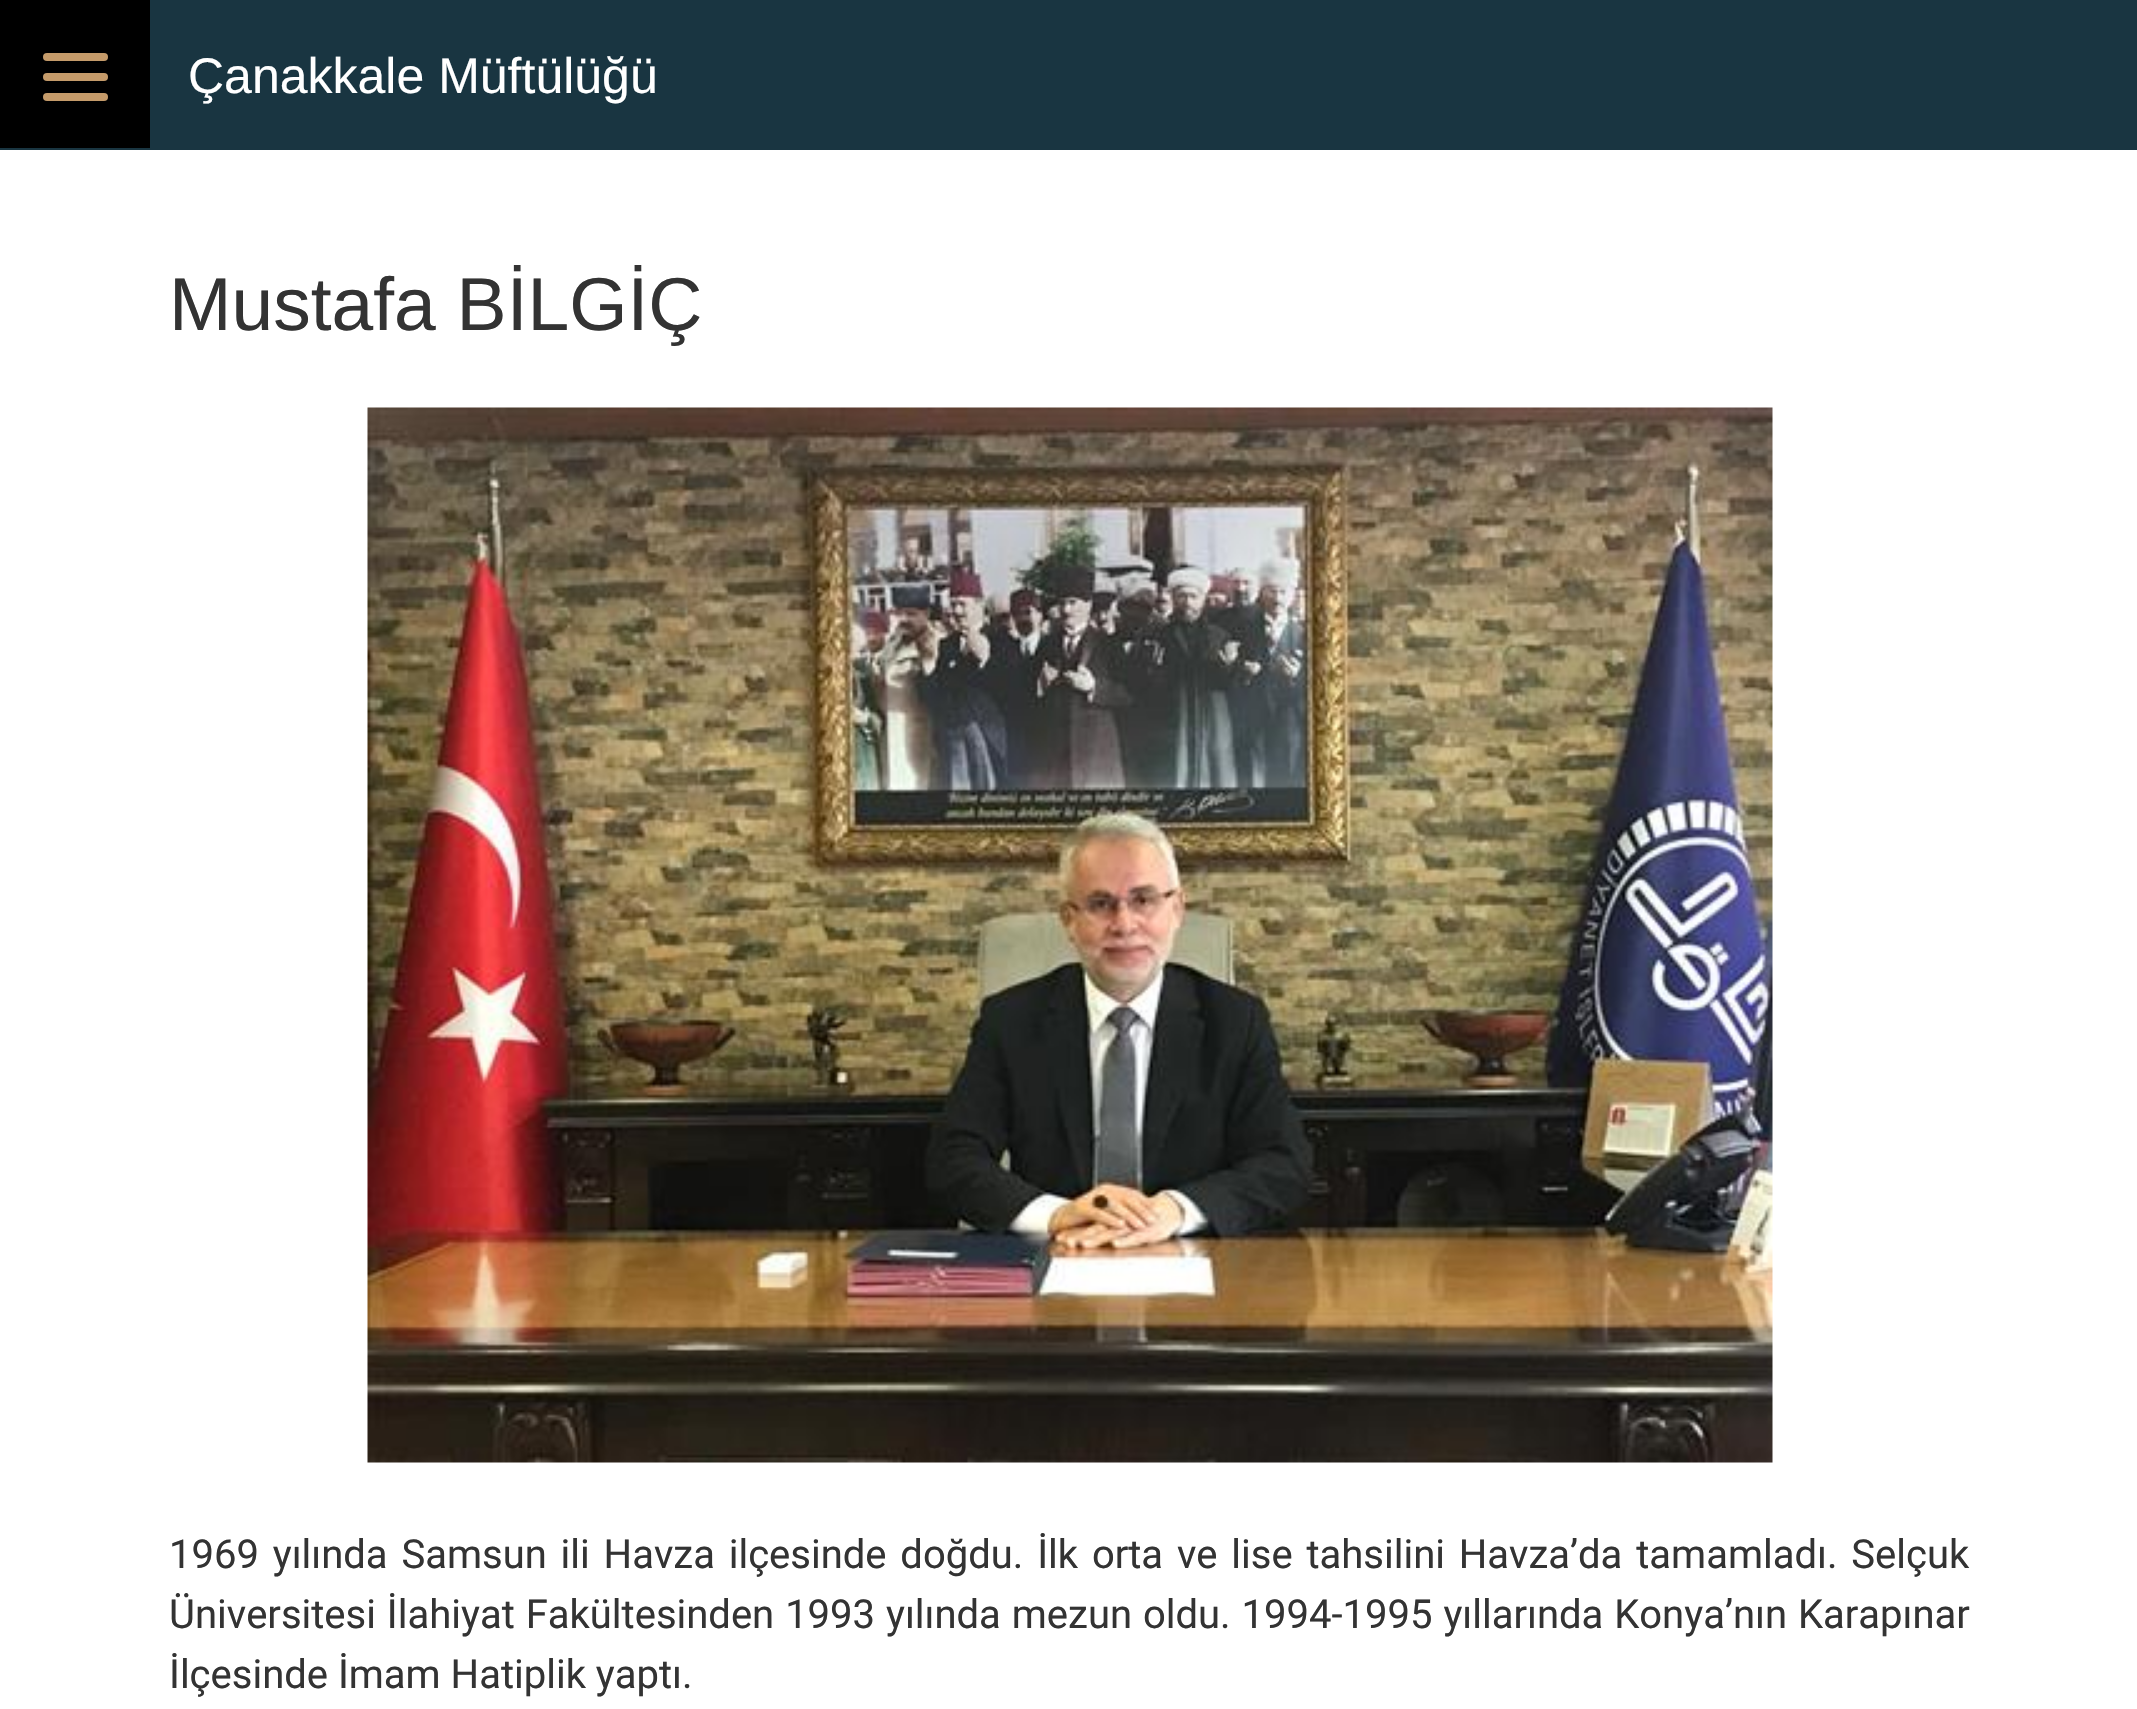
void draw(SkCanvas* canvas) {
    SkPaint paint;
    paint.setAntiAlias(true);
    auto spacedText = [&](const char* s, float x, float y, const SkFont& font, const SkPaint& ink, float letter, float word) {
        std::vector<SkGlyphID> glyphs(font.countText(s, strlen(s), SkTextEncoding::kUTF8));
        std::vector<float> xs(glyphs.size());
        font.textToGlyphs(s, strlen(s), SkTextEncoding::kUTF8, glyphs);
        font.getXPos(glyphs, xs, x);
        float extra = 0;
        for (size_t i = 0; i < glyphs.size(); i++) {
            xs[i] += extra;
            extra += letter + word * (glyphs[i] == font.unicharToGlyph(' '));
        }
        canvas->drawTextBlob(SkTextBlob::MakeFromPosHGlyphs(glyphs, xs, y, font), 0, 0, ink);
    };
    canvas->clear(0xFFFFFFFF);
    paint.setColor(0xFF193541);
    canvas->drawRect(SkRect::MakeXYWH(0, 0, 2137, 150), paint);
    paint.setColor(0xFF000000);
    canvas->drawRect(SkRect::MakeXYWH(0, 0, 150, 148), paint);
    paint.setColor(0xFFC59B6A);
    canvas->drawRoundRect(SkRect::MakeXYWH(43, 53, 65, 8), 4, 4, paint);
    canvas->drawRoundRect(SkRect::MakeXYWH(43, 73, 65, 8), 4, 4, paint);
    canvas->drawRoundRect(SkRect::MakeXYWH(43, 93, 65, 8), 4, 4, paint);
    SkFont font1(fontMgr->matchFamilyStyle("Liberation Sans", SkFontStyle::Normal()), 50);
    font1.setSubpixel(true);
    paint.setColor(0xFFFFFFFF);
    canvas->drawString("Çanakkale Müftülüğü", 188, 93, font1, paint);
    SkFont font2(fontMgr->matchFamilyStyle("Liberation Sans", SkFontStyle::Normal()), 75);
    font2.setSubpixel(true);
    paint.setColor(0xFF333333);
    canvas->drawString("Mustafa BİLGİÇ", 169, 330, font2, paint);
    canvas->drawImageRect(SkImages::DeferredFromEncodedData(SkData::MakeFromFileName("img1.png")), SkRect::MakeXYWH(367, 407, 1406, 1056), SkSamplingOptions());
    SkFont font3(fontMgr->matchFamilyStyle("Roboto", SkFontStyle::Normal()), 40);
    font3.setSubpixel(true);
    spacedText("1969 yılında Samsun ili Havza ilçesinde doğdu. İlk orta ve lise tahsilini Havza’da tamamladı. Selçuk", 169, 1568, font3, paint, 0, 3.9f);
    spacedText("Üniversitesi İlahiyat Fakültesinden 1993 yılında mezun oldu. 1994-1995 yıllarında Konya’nın Karapınar", 169, 1628, font3, paint, 0, 1);
    canvas->drawString("İlçesinde İmam Hatiplik yaptı.", 169, 1688, font3, paint);
}
